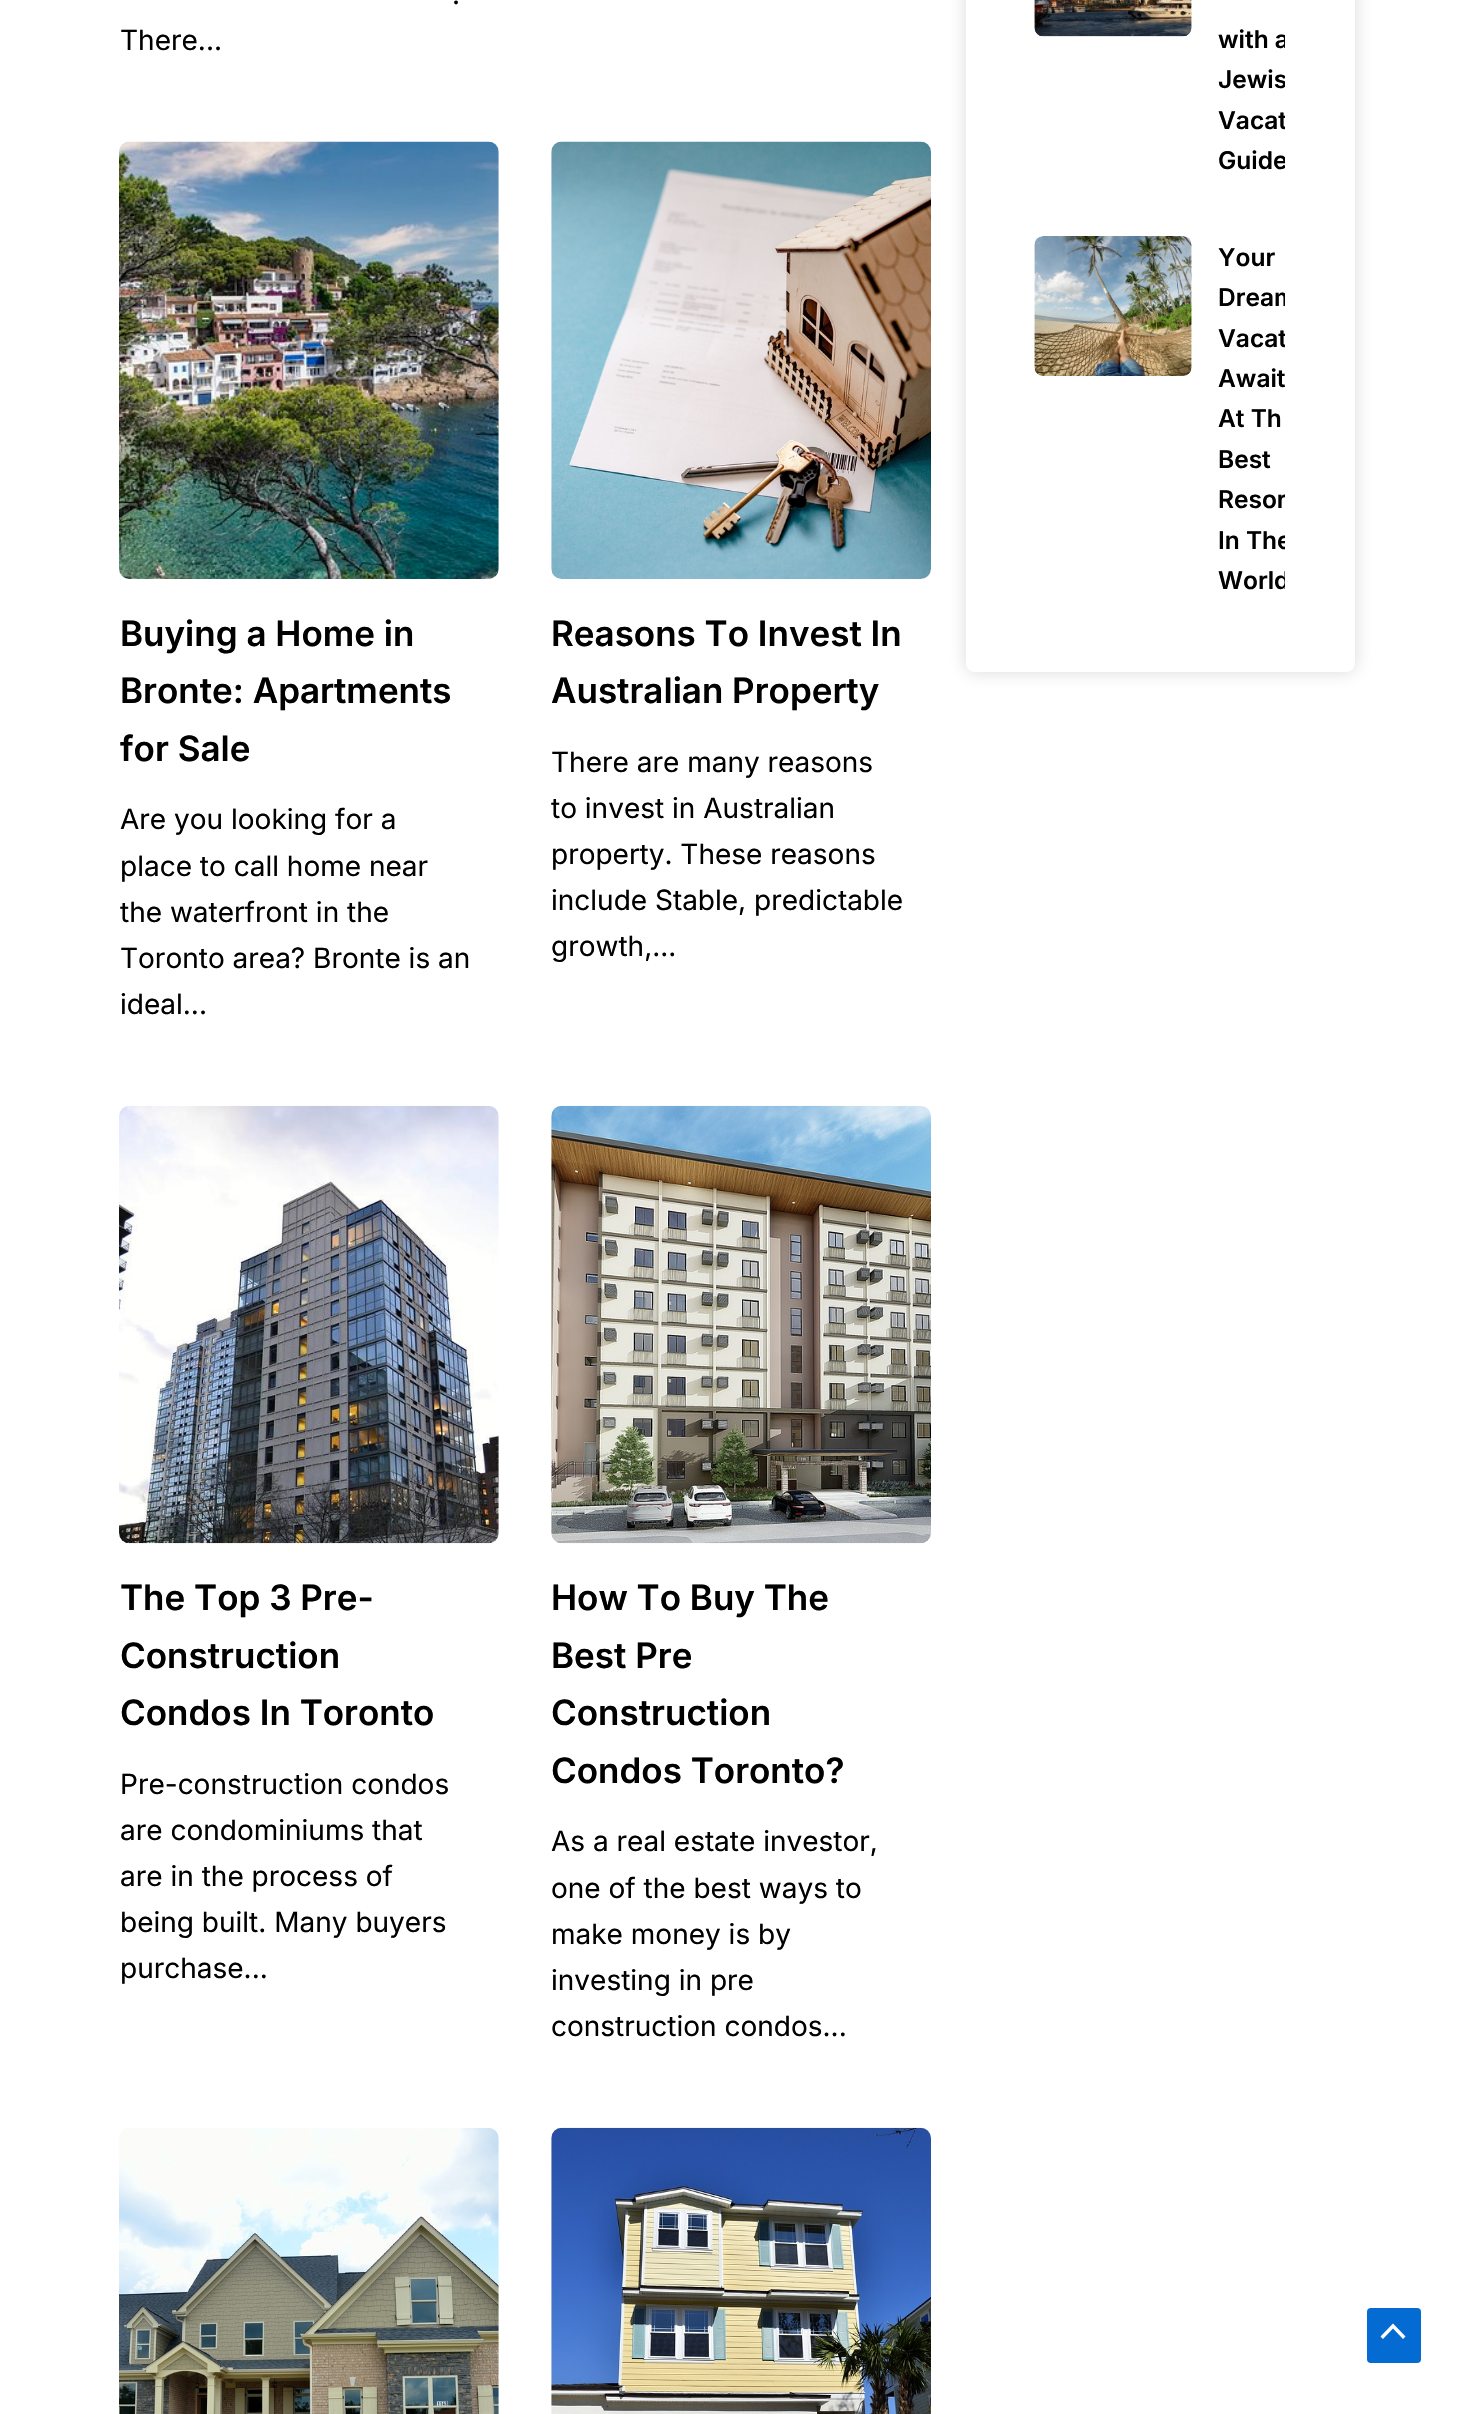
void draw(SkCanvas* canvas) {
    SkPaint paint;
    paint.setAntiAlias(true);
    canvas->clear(0xFFFFFFFF);
    SkFont font1(fontMgr->matchFamilyStyle("Inter", SkFontStyle::Normal()), 28);
    font1.setSubpixel(true);
    paint.setColor(0xFF000000);
    canvas->drawString(".", 452, 4, font1, paint);
    canvas->drawString("There...", 120, 50, font1, paint);
    canvas->drawImageRect(SkImages::DeferredFromEncodedData(SkData::MakeFromFileName("img1.png")), SkRect::MakeXYWH(119, 141, 380, 438), SkSamplingOptions());
    SkFont font2(fontMgr->matchFamilyStyle("Inter", SkFontStyle(600, SkFontStyle::kNormal_Width, SkFontStyle::kUpright_Slant)), 35);
    font2.setSubpixel(true);
    canvas->drawString("Buying a Home in", 120, 646, font2, paint);
    canvas->drawString("Bronte: Apartments", 120, 703, font2, paint);
    canvas->drawString("for Sale", 120, 761, font2, paint);
    canvas->drawString("Are you looking for a", 120, 829, font1, paint);
    canvas->drawString("place to call home near", 120, 876, font1, paint);
    canvas->drawString("the waterfront in the", 120, 922, font1, paint);
    canvas->drawString("Toronto area? Bronte is an", 120, 968, font1, paint);
    canvas->drawString("ideal...", 120, 1014, font1, paint);
    canvas->drawImageRect(SkImages::DeferredFromEncodedData(SkData::MakeFromFileName("img2.png")), SkRect::MakeXYWH(551, 141, 380, 438), SkSamplingOptions());
    canvas->drawString("Reasons To Invest In", 551, 646, font2, paint);
    canvas->drawString("Australian Property", 551, 703, font2, paint);
    canvas->drawString("There are many reasons", 551, 772, font1, paint);
    canvas->drawString("to invest in Australian", 551, 818, font1, paint);
    canvas->drawString("property. These reasons", 551, 864, font1, paint);
    canvas->drawString("include Stable, predictable", 551, 910, font1, paint);
    canvas->drawString("growth,...", 551, 956, font1, paint);
    canvas->drawImageRect(SkImages::DeferredFromEncodedData(SkData::MakeFromFileName("img3.png")), SkRect::MakeXYWH(119, 1105, 380, 439), SkSamplingOptions());
    canvas->drawString("The Top 3 Pre-", 120, 1610, font2, paint);
    canvas->drawString("Construction", 120, 1668, font2, paint);
    canvas->drawString("Condos In Toronto", 120, 1725, font2, paint);
    canvas->drawString("Pre-construction condos", 120, 1794, font1, paint);
    canvas->drawString("are condominiums that", 120, 1840, font1, paint);
    canvas->drawString("are in the process of", 120, 1886, font1, paint);
    canvas->drawString("being built. Many buyers", 120, 1932, font1, paint);
    canvas->drawString("purchase...", 120, 1978, font1, paint);
    canvas->drawImageRect(SkImages::DeferredFromEncodedData(SkData::MakeFromFileName("img4.png")), SkRect::MakeXYWH(551, 1105, 380, 439), SkSamplingOptions());
    canvas->drawString("How To Buy The", 551, 1610, font2, paint);
    canvas->drawString("Best Pre", 551, 1668, font2, paint);
    canvas->drawString("Construction", 551, 1725, font2, paint);
    canvas->drawString("Condos Toronto?", 551, 1783, font2, paint);
    canvas->drawString("As a real estate investor,", 551, 1851, font1, paint);
    canvas->drawString("one of the best ways to", 551, 1898, font1, paint);
    canvas->drawString("make money is by", 551, 1944, font1, paint);
    canvas->drawString("investing in pre", 551, 1990, font1, paint);
    canvas->drawString("construction condos...", 551, 2036, font1, paint);
    canvas->drawImageRect(SkImages::DeferredFromEncodedData(SkData::MakeFromFileName("img5.png")), SkRect::MakeXYWH(119, 2128, 380, 286), SkSamplingOptions());
    canvas->drawImageRect(SkImages::DeferredFromEncodedData(SkData::MakeFromFileName("img6.png")), SkRect::MakeXYWH(551, 2127, 380, 287), SkSamplingOptions());
    canvas->save();
    canvas->clipPath(SkPathBuilder(SkPathFillType::kEvenOdd).moveTo(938, 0).lineTo(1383, 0).lineTo(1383, 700).lineTo(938, 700).close().moveTo(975, -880).lineTo(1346, -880).cubicTo(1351, -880, 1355, -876, 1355, -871).lineTo(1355, 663).cubicTo(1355, 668, 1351, 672, 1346, 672).lineTo(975, 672).cubicTo(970, 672, 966, 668, 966, 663).lineTo(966, -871).cubicTo(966, -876, 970, -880, 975, -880).close().detach(), true);
    paint.setColor(0x80B4B4B4);
    paint.setMaskFilter(SkMaskFilter::MakeBlur(kNormal_SkBlurStyle, 9));
    canvas->drawRoundRect(SkRect::MakeXYWH(966, -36, 389, 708), 9, 9, paint);
    paint.setMaskFilter(nullptr);
    canvas->restore();
    canvas->drawImageRect(SkImages::DeferredFromEncodedData(SkData::MakeFromFileName("img7.png")), SkRect::MakeXYWH(1034, 0, 158, 37), SkSamplingOptions());
    canvas->save();
    canvas->clipRect(SkRect::MakeXYWH(1034, 0, 251, 210));
    SkFont font3(fontMgr->matchFamilyStyle("Inter", SkFontStyle(600, SkFontStyle::kNormal_Width, SkFontStyle::kUpright_Slant)), 24.5f);
    font3.setSubpixel(true);
    paint.setColor(0xFF000000);
    canvas->drawString("with a", 1218, 48, font3, paint);
    canvas->drawString("Jewis", 1218, 88, font3, paint);
    canvas->drawString("Vacat", 1218, 129, font3, paint);
    canvas->drawString("Guide", 1218, 169, font3, paint);
    canvas->restore();
    canvas->drawImageRect(SkImages::DeferredFromEncodedData(SkData::MakeFromFileName("img8.png")), SkRect::MakeXYWH(1034, 236, 158, 140), SkSamplingOptions());
    canvas->drawString("Your", 1218, 266, font3, paint);
    canvas->save();
    canvas->clipRect(SkRect::MakeXYWH(1034, 236, 251, 394));
    canvas->drawString("Dream", 1218, 306, font3, paint);
    canvas->drawString("Vacat", 1218, 347, font3, paint);
    canvas->restore();
    canvas->drawString("Await", 1218, 387, font3, paint);
    canvas->drawString("At Th", 1218, 427, font3, paint);
    canvas->drawString("Best", 1218, 468, font3, paint);
    canvas->save();
    canvas->clipRect(SkRect::MakeXYWH(1034, 236, 251, 394));
    canvas->drawString("Resor", 1218, 508, font3, paint);
    canvas->drawString("In The", 1218, 549, font3, paint);
    canvas->drawString("World", 1218, 589, font3, paint);
    canvas->restore();
    paint.setColor(0xFF046BD2);
    canvas->drawRoundRect(SkRect::MakeXYWH(1367, 2308, 54, 55), 4, 4, paint);
    paint.setColor(0xFFFFFFFF);
    canvas->drawPath(SkPathBuilder().moveTo(1405.5f, 2336.5f).lineTo(1393, 2323.5f).lineTo(1380.5f, 2336.5f).lineTo(1383, 2339).lineTo(1393, 2328.5f).lineTo(1403, 2339).close().detach(), paint);
}
